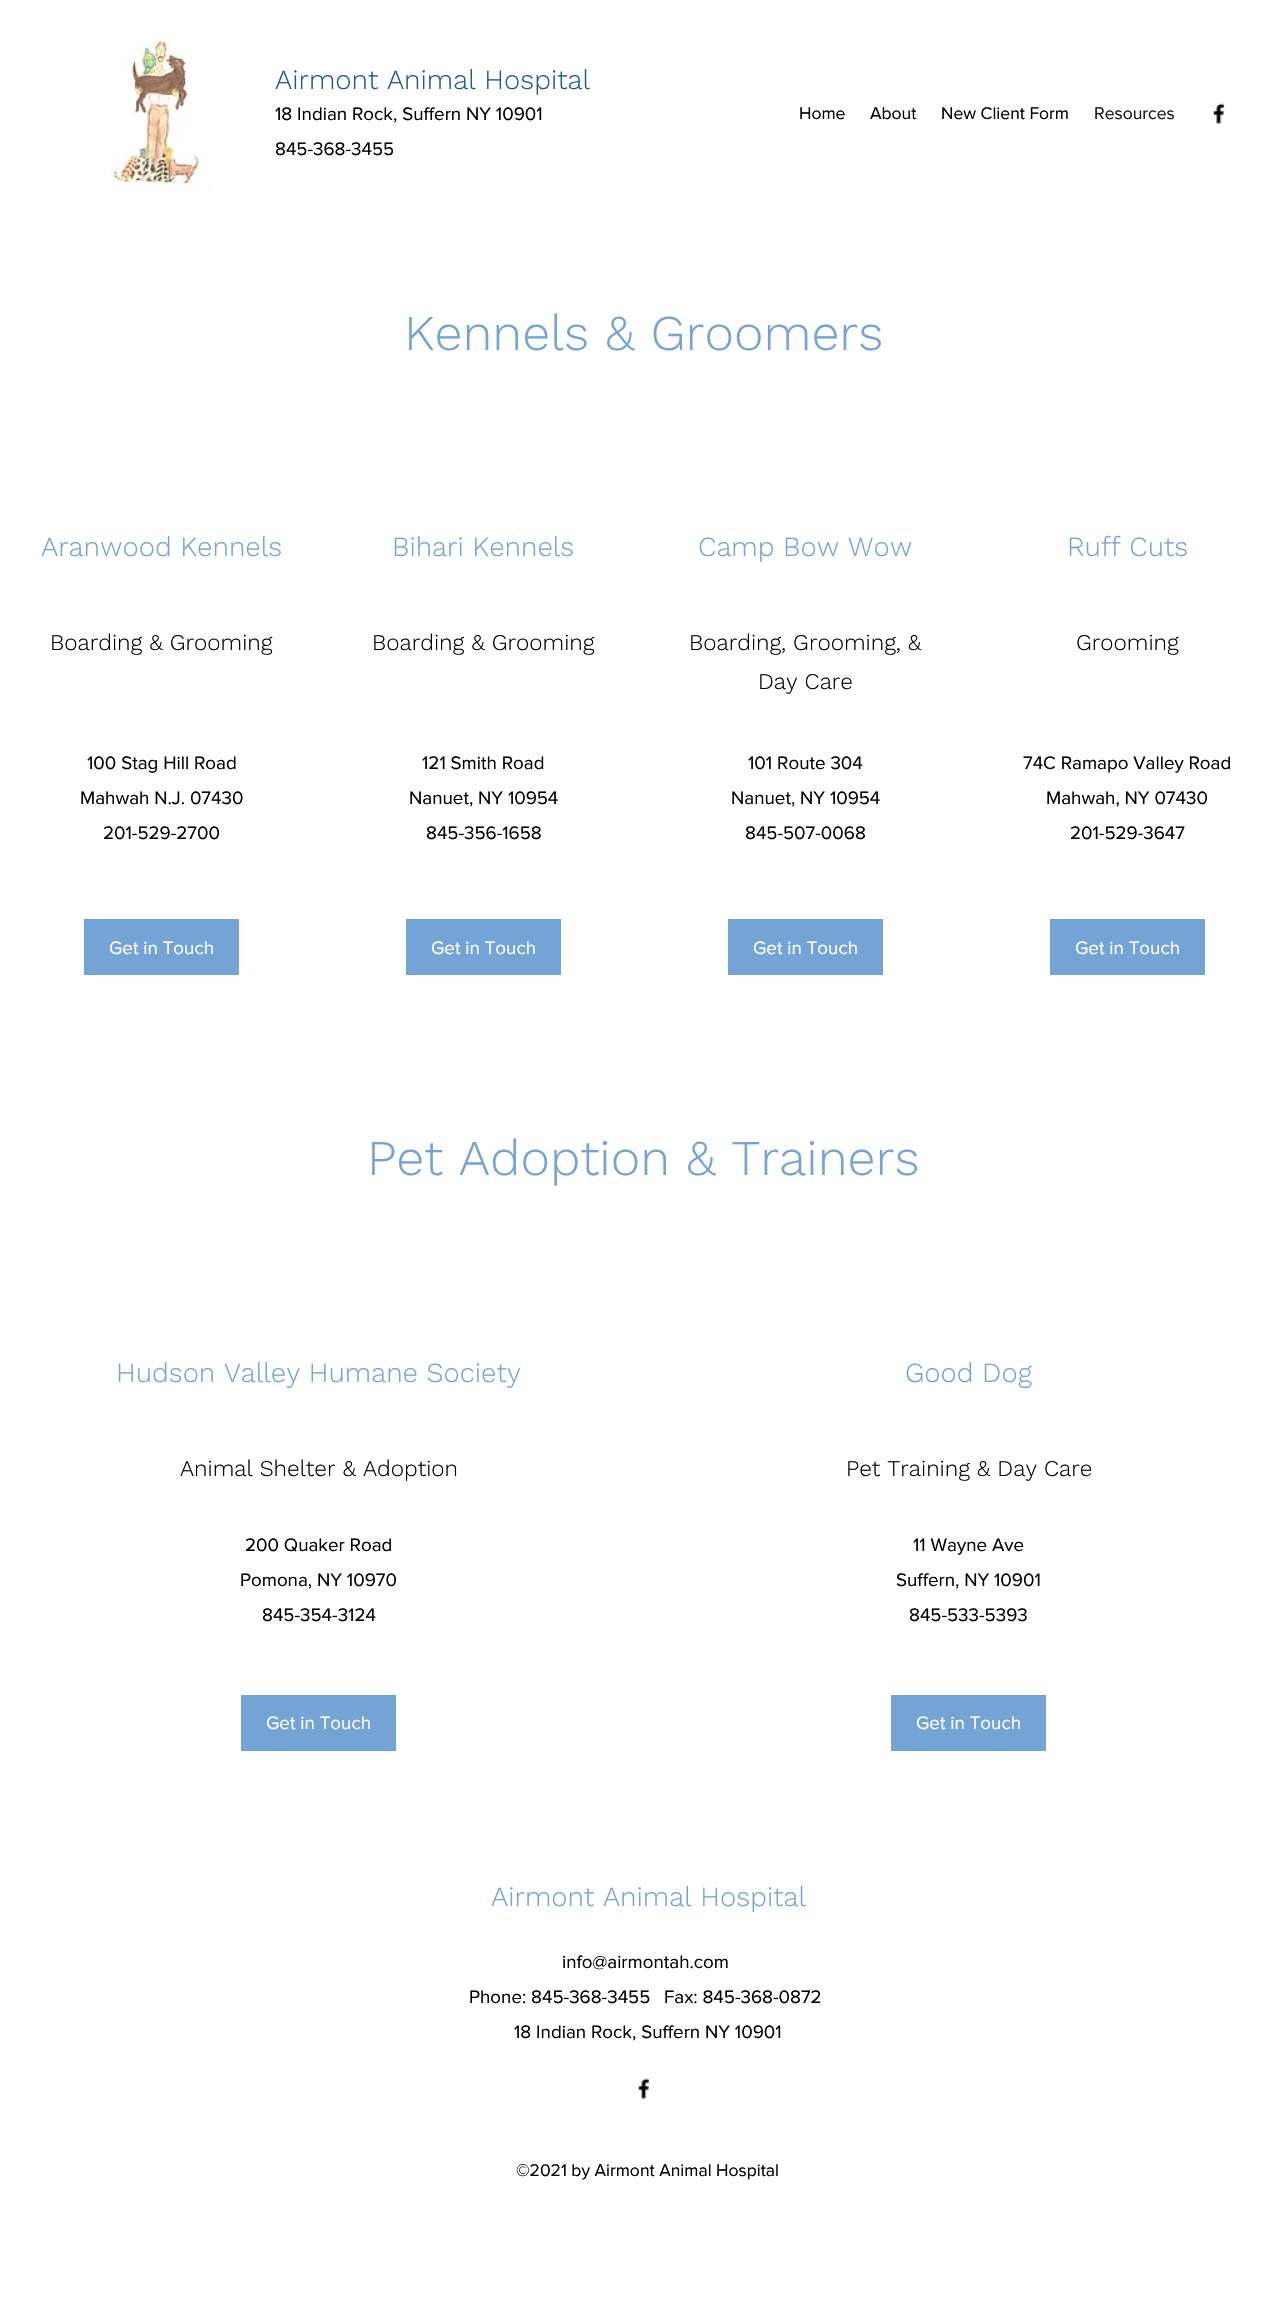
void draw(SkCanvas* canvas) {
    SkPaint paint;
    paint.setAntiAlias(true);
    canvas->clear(0xFFFFFFFF);
    canvas->drawImageRect(SkImages::DeferredFromEncodedData(SkData::MakeFromFileName("img1.png")), SkRect::MakeXYWH(111, 38, 99, 149), SkSamplingOptions());
    SkFont font1(fontMgr->matchFamilyStyle("Work Sans", SkFontStyle(300, SkFontStyle::kNormal_Width, SkFontStyle::kUpright_Slant)), 27.5f);
    font1.setSubpixel(true);
    paint.setColor(0xFF205A93);
    canvas->drawString("Airmont Animal Hospital", 275, 89, font1, paint);
    SkFont font2(fontMgr->matchFamilyStyle("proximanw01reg", SkFontStyle::Normal()), 18.75f);
    font2.setSubpixel(true);
    paint.setColor(0xFF000000);
    canvas->drawString("18 Indian Rock, Suffern NY 10901", 275, 120, font2, paint);
    canvas->drawString("845-368-3455", 275, 155, font2, paint);
    SkFont font3(fontMgr->matchFamilyStyle("proximanw01reg", SkFontStyle::Normal()), 17.5f);
    font3.setSubpixel(true);
    canvas->drawString("Home", 799, 119, font3, paint);
    canvas->drawString("About", 870, 119, font3, paint);
    canvas->drawString("New Client Form", 941, 119, font3, paint);
    paint.setColor(0xFF161616);
    canvas->drawString("Resources", 1094, 119, font3, paint);
    canvas->drawImageRect(SkImages::DeferredFromEncodedData(SkData::MakeFromFileName("img2.png")), SkRect::MakeXYWH(1213, 103, 12, 21), SkSamplingOptions());
    SkFont font4(fontMgr->matchFamilyStyle("Work Sans", SkFontStyle(300, SkFontStyle::kNormal_Width, SkFontStyle::kUpright_Slant)), 50);
    font4.setSubpixel(true);
    paint.setColor(0xFF73A4D5);
    canvas->drawString("Kennels & Groomers", 404, 350, font4, paint);
    canvas->drawString("Aranwood Kennels", 41, 556, font1, paint);
    SkFont font5(fontMgr->matchFamilyStyle("Work Sans", SkFontStyle(300, SkFontStyle::kNormal_Width, SkFontStyle::kUpright_Slant)), 22.5f);
    font5.setSubpixel(true);
    paint.setColor(0xFF000000);
    canvas->drawString("Boarding & Grooming", 50, 650, font5, paint);
    canvas->drawString("100 Stag Hill Road", 87, 769, font2, paint);
    canvas->drawString("Mahwah N.J. 07430", 80, 804, font2, paint);
    canvas->drawString("201-529-2700", 103, 839, font2, paint);
    paint.setColor(0xFF73A4D5);
    canvas->drawRect(SkRect::MakeXYWH(84, 919, 155, 56), paint);
    paint.setColor(0xFFFFFFFF);
    canvas->drawString("Get in Touch", 109, 954, font2, paint);
    paint.setColor(0xFF73A4D5);
    canvas->drawString("Bihari Kennels", 392, 556, font1, paint);
    paint.setColor(0xFF000000);
    canvas->drawString("Boarding & Grooming", 372, 650, font5, paint);
    canvas->drawString("121 Smith Road", 422, 769, font2, paint);
    canvas->drawString("Nanuet, NY 10954", 409, 804, font2, paint);
    canvas->drawString("845-356-1658", 426, 839, font2, paint);
    paint.setColor(0xFF73A4D5);
    canvas->drawRect(SkRect::MakeXYWH(406, 919, 155, 56), paint);
    paint.setColor(0xFFFFFFFF);
    canvas->drawString("Get in Touch", 431, 954, font2, paint);
    paint.setColor(0xFF73A4D5);
    canvas->drawString("Camp Bow Wow", 698, 556, font1, paint);
    paint.setColor(0xFF000000);
    canvas->drawString("Boarding, Grooming, &", 689, 650, font5, paint);
    canvas->drawString("Day Care", 758, 689, font5, paint);
    canvas->drawString("101 Route 304", 748, 769, font2, paint);
    canvas->drawString("Nanuet, NY 10954", 731, 804, font2, paint);
    canvas->drawString("845-507-0068", 745, 839, font2, paint);
    paint.setColor(0xFF73A4D5);
    canvas->drawRect(SkRect::MakeXYWH(728, 919, 155, 56), paint);
    paint.setColor(0xFFFFFFFF);
    canvas->drawString("Get in Touch", 753, 954, font2, paint);
    paint.setColor(0xFF73A4D5);
    canvas->drawString("Ruff Cuts", 1067, 556, font1, paint);
    paint.setColor(0xFF000000);
    canvas->drawString("Grooming", 1076, 650, font5, paint);
    canvas->drawString("74C Ramapo Valley Road", 1023, 769, font2, paint);
    canvas->drawString("Mahwah, NY 07430", 1046, 804, font2, paint);
    canvas->drawString("201-529-3647", 1070, 839, font2, paint);
    paint.setColor(0xFF73A4D5);
    canvas->drawRect(SkRect::MakeXYWH(1050, 919, 155, 56), paint);
    paint.setColor(0xFFFFFFFF);
    canvas->drawString("Get in Touch", 1075, 954, font2, paint);
    paint.setColor(0xFF73A4D5);
    canvas->drawString("Pet Adoption & Trainers", 367, 1175, font4, paint);
    canvas->drawString("Hudson Valley Humane Society", 116, 1382, font1, paint);
    paint.setColor(0xFF000000);
    canvas->drawString("Animal Shelter & Adoption", 180, 1476, font5, paint);
    canvas->drawString("200 Quaker Road", 245, 1551, font2, paint);
    canvas->drawString("Pomona, NY 10970", 240, 1586, font2, paint);
    canvas->drawString("845-354-3124", 262, 1621, font2, paint);
    paint.setColor(0xFF73A4D5);
    canvas->drawRect(SkRect::MakeXYWH(241, 1695, 155, 56), paint);
    paint.setColor(0xFFFFFFFF);
    canvas->drawString("Get in Touch", 266, 1729, font2, paint);
    paint.setColor(0xFF73A4D5);
    canvas->drawString("Good Dog", 905, 1382, font1, paint);
    paint.setColor(0xFF000000);
    canvas->drawString("Pet Training & Day Care", 846, 1476, font5, paint);
    canvas->drawString("11 Wayne Ave", 913, 1551, font2, paint);
    canvas->drawString("Suffern, NY 10901", 896, 1586, font2, paint);
    canvas->drawString("845-533-5393", 909, 1621, font2, paint);
    paint.setColor(0xFF73A4D5);
    canvas->drawRect(SkRect::MakeXYWH(891, 1695, 155, 56), paint);
    paint.setColor(0xFFFFFFFF);
    canvas->drawString("Get in Touch", 916, 1729, font2, paint);
    paint.setColor(0xFF73A4D5);
    canvas->drawString("Airmont Animal Hospital", 491, 1906, font1, paint);
    paint.setColor(0xFF000000);
    canvas->drawString("info@airmontah.com", 562, 1968, font2, paint);
    canvas->drawString("Phone: 845-368-3455", 469, 2003, font2, paint);
    canvas->drawString("Fax: 845-368-0872", 664, 2003, font2, paint);
    canvas->drawString("18 Indian Rock, Suffern NY 10901", 514, 2038, font2, paint);
    canvas->drawImageRect(SkImages::DeferredFromEncodedData(SkData::MakeFromFileName("img2.png")), SkRect::MakeXYWH(638, 2078, 12, 21), SkSamplingOptions());
    canvas->drawString("©2021 by Airmont Animal Hospital", 516, 2176, font3, paint);
}
